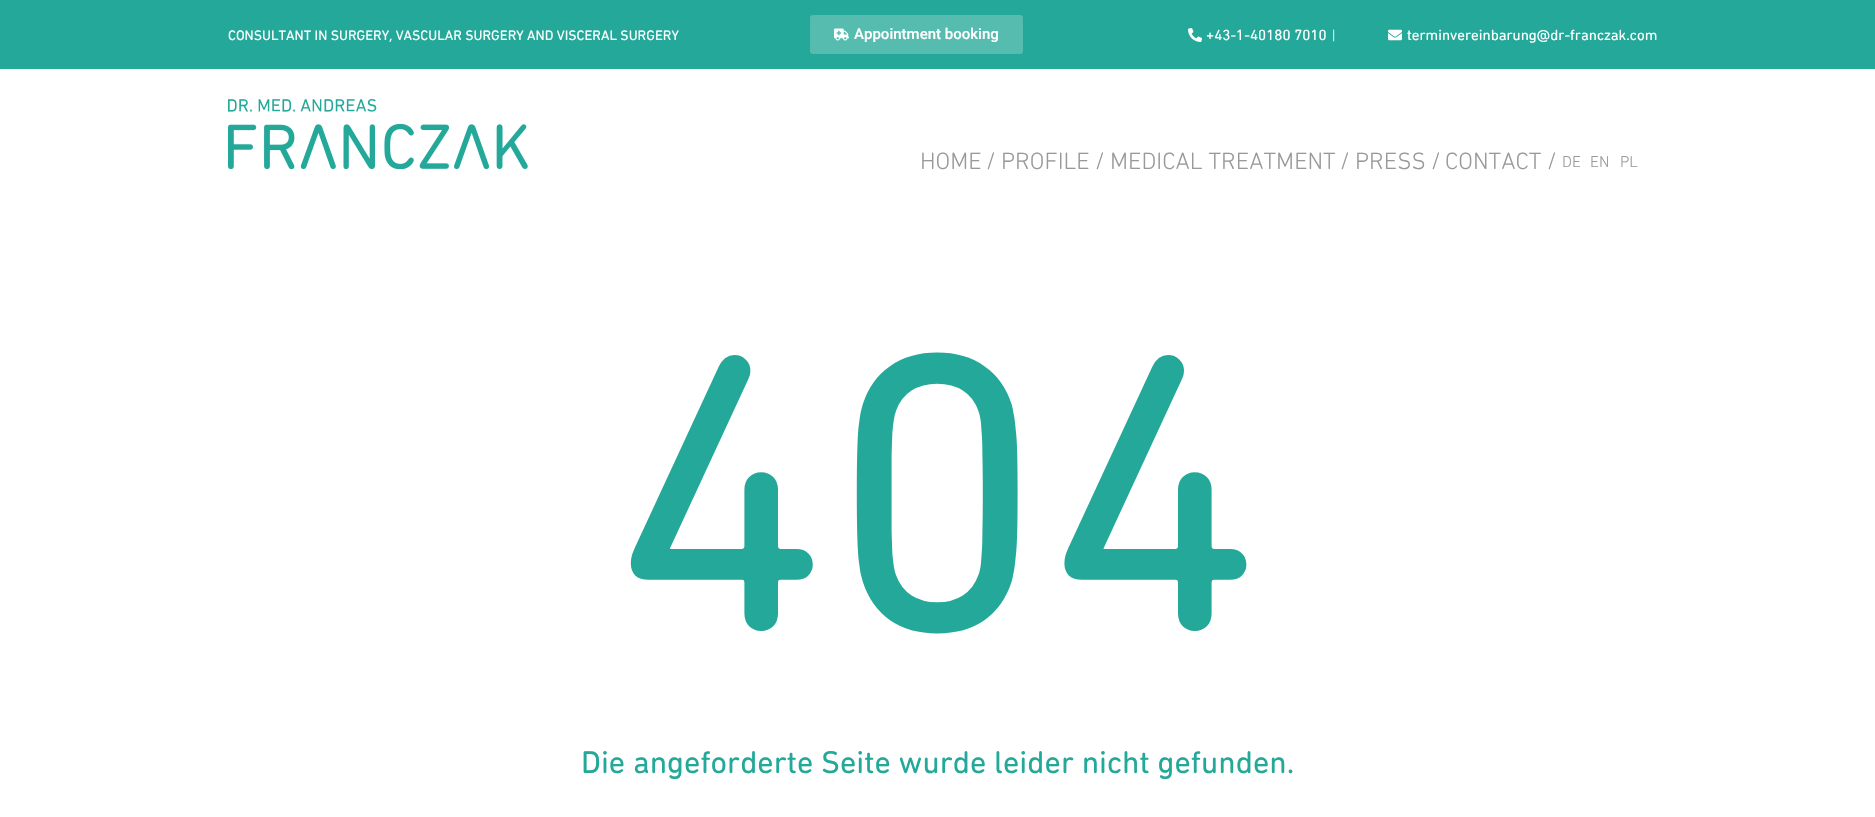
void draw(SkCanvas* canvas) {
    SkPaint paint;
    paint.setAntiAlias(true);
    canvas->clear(0xFFFFFFFF);
    paint.setColor(0xFF23A899);
    canvas->drawRect(SkRect::MakeXYWH(0, 0, 1875, 69), paint);
    SkFont font1(fontMgr->matchFamilyStyle("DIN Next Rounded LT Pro", SkFontStyle::Normal()), 14);
    font1.setSubpixel(true);
    paint.setColor(0xFFFFFFFF);
    canvas->drawString("CONSULTANT IN SURGERY, VASCULAR SURGERY AND VISCERAL SURGERY", 228, 40, font1, paint);
    paint.setColor(0xFF56BCB0);
    canvas->drawRoundRect(SkRect::MakeXYWH(810, 15, 213, 39), 3, 3, paint);
    canvas->drawImageRect(SkImages::DeferredFromEncodedData(SkData::MakeFromFileName("img1.png")), SkRect::MakeXYWH(834, 28, 15, 13), SkSamplingOptions());
    SkFont font2(fontMgr->matchFamilyStyle("Roboto", SkFontStyle(500, SkFontStyle::kNormal_Width, SkFontStyle::kUpright_Slant)), 15);
    font2.setSubpixel(true);
    paint.setColor(0xFFFFFFFF);
    canvas->drawString("Appointment booking", 854, 39, font2, paint);
    canvas->drawImageRect(SkImages::DeferredFromEncodedData(SkData::MakeFromFileName("img2.png")), SkRect::MakeXYWH(1188, 28, 14, 14), SkSamplingOptions());
    SkFont font3(fontMgr->matchFamilyStyle("DIN Next Rounded LT Pro", SkFontStyle::Normal()), 15);
    font3.setSubpixel(true);
    canvas->drawString("+43-1-40180 7010", 1206, 40, font3, paint);
    SkFont font4(fontMgr->matchFamilyStyle("DIN Next Rounded LT Pro", SkFontStyle(300, SkFontStyle::kNormal_Width, SkFontStyle::kUpright_Slant)), 14);
    font4.setSubpixel(true);
    canvas->drawString("|", 1332, 40, font4, paint);
    canvas->drawImageRect(SkImages::DeferredFromEncodedData(SkData::MakeFromFileName("img3.png")), SkRect::MakeXYWH(1388, 29, 14, 12), SkSamplingOptions());
    canvas->drawString("terminvereinbarung@dr-franczak.com", 1407, 40, font3, paint);
    canvas->drawImageRect(SkImages::DeferredFromEncodedData(SkData::MakeFromFileName("img4.png")), SkRect::MakeXYWH(228, 99, 300, 70), SkSamplingOptions());
    SkFont font5(fontMgr->matchFamilyStyle("DIN Next Rounded LT Pro", SkFontStyle(300, SkFontStyle::kNormal_Width, SkFontStyle::kUpright_Slant)), 24);
    font5.setSubpixel(true);
    paint.setColor(0xFF999999);
    canvas->drawString("HOME", 920, 169, font5, paint);
    canvas->drawString("/", 986, 169, font5, paint);
    canvas->drawString("PROFILE", 1001, 169, font5, paint);
    canvas->drawString("/", 1095, 169, font5, paint);
    canvas->drawString("MEDICAL TREATMENT", 1110, 169, font5, paint);
    canvas->drawString("/", 1340, 169, font5, paint);
    canvas->drawString("PRESS", 1355, 169, font5, paint);
    canvas->drawString("/", 1431, 169, font5, paint);
    canvas->drawString("CONTACT", 1445, 169, font5, paint);
    canvas->drawString("/", 1547, 169, font5, paint);
    SkFont font6(fontMgr->matchFamilyStyle("DIN Next Rounded LT Pro", SkFontStyle(300, SkFontStyle::kNormal_Width, SkFontStyle::kUpright_Slant)), 16);
    font6.setSubpixel(true);
    canvas->drawString("DE", 1562, 167, font6, paint);
    canvas->drawString("EN", 1590, 167, font6, paint);
    canvas->drawString("PL", 1620, 167, font6, paint);
    SkFont font7(fontMgr->matchFamilyStyle("DIN Next Rounded LT Pro", SkFontStyle::Normal()), 400);
    font7.setSubpixel(true);
    paint.setColor(0xFF23A899);
    canvas->drawString("404", 612, 629, font7, paint);
    SkFont font8(fontMgr->matchFamilyStyle("DIN Next Rounded LT Pro", SkFontStyle::Normal()), 32);
    font8.setSubpixel(true);
    canvas->drawString("Die angeforderte Seite wurde leider nicht gefunden.", 581, 773, font8, paint);
}
